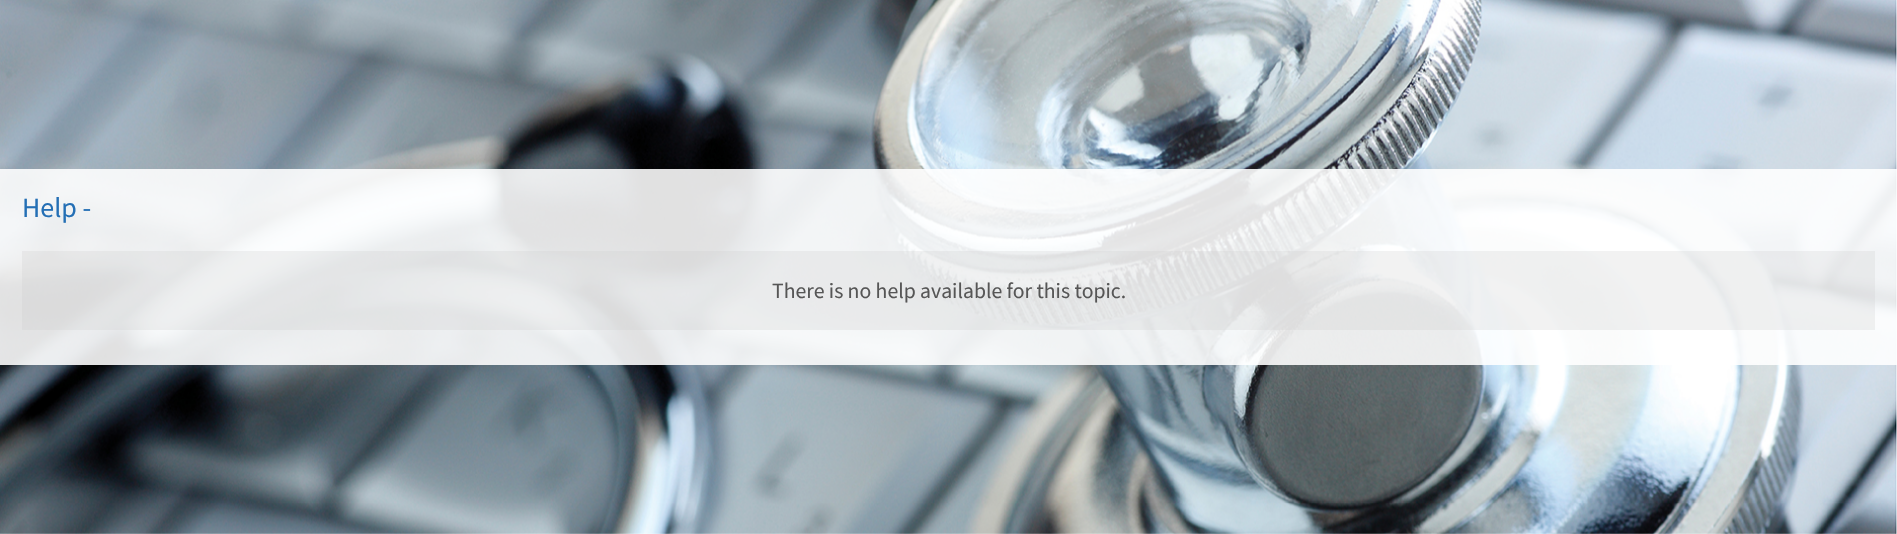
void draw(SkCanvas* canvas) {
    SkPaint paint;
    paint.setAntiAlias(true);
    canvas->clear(0xFFFFFFFF);
    canvas->drawImageRect(SkImages::DeferredFromEncodedData(SkData::MakeFromFileName("img1.png")), SkRect::MakeXYWH(0, 0, 1897, 534), SkSamplingOptions());
    paint.setColor(0xE0FFFFFF);
    canvas->drawRect(SkRect::MakeXYWH(0, 169, 1897, 196), paint);
    SkFont font1(fontMgr->matchFamilyStyle("Source Sans Pro", SkFontStyle::Normal()), 28);
    font1.setSubpixel(true);
    paint.setColor(0xFF246FB5);
    canvas->drawString("Help -", 22, 217, font1, paint);
    paint.setColor(0x40CCCCCC);
    canvas->drawRect(SkRect::MakeXYWH(22, 251, 1853, 79), paint);
    SkFont font2(fontMgr->matchFamilyStyle("Source Sans Pro", SkFontStyle::Normal()), 21.7f);
    font2.setSubpixel(true);
    paint.setColor(0xFF565656);
    canvas->drawString("There is no help available for this topic.", 772, 298, font2, paint);
}
